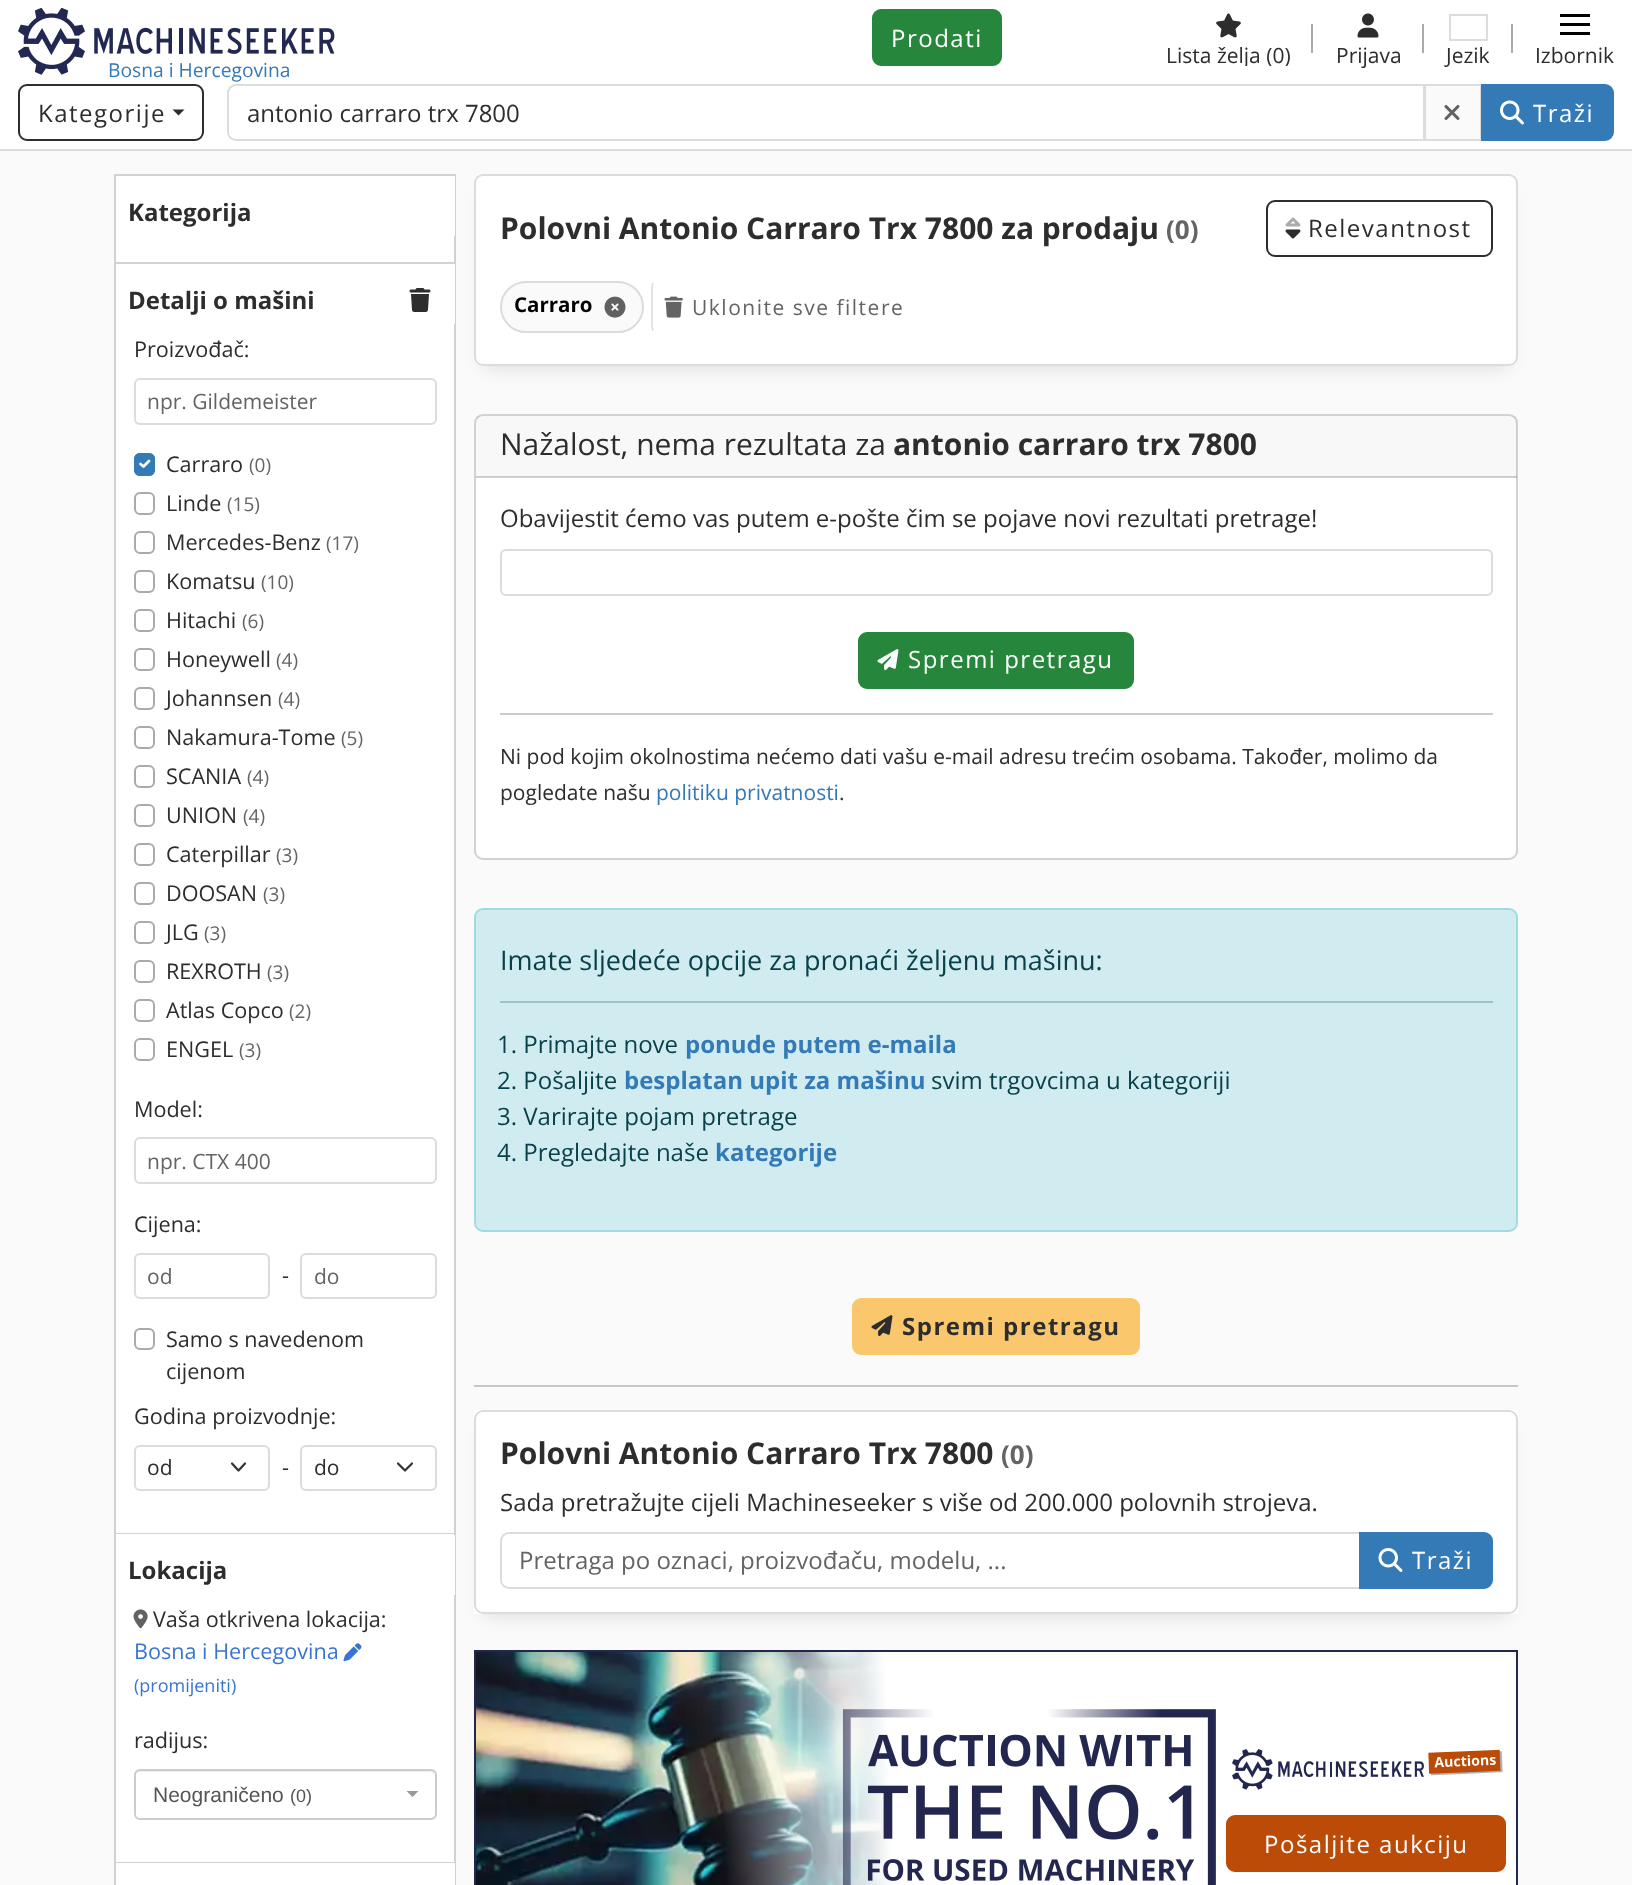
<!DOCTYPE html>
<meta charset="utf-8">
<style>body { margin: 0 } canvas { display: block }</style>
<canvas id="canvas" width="1632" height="1885"></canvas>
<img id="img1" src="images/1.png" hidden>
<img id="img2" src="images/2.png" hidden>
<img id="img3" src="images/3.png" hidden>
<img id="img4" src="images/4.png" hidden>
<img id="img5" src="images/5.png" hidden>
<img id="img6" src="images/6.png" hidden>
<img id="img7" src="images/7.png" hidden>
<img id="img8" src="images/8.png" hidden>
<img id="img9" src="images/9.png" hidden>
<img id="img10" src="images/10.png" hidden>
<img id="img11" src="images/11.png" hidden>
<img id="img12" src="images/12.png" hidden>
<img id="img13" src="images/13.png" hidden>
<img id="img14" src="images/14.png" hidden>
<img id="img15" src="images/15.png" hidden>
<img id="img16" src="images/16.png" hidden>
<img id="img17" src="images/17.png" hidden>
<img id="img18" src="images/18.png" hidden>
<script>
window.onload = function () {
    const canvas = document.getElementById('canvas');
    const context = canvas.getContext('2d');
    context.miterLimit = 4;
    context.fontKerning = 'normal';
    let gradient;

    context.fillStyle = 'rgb(255, 255, 255)';
    context.fillRect(0, 0, 1632, 1885);
    context.fillStyle = 'rgb(220, 220, 220)';
    context.fillRect(0, 149, 1632, 2);
    context.fillStyle = 'rgb(38, 134, 60)';
    context.beginPath();
    context.roundRect(873, 10, 128, 55, 8);
    context.fill();
    context.strokeStyle = 'rgb(38, 134, 60)';
    context.lineWidth = 2;
    context.stroke();
    context.drawImage(document.getElementById('img1'), 1216, 13, 25, 25);
    context.fillStyle = 'rgb(170, 170, 170)';
    context.fillRect(1311, 24, 2, 29);
    context.drawImage(document.getElementById('img2'), 1357, 13, 22, 25);
    context.fillRect(1422, 24, 2, 29);
    context.strokeStyle = 'rgb(220, 220, 220)';
    context.strokeRect(1450, 15, 37, 25);
    context.fillRect(1511, 24, 2, 29);
    context.fillStyle = 'rgb(0, 0, 0)';
    context.fillRect(1560, 14, 30, 3);
    context.fillRect(1560, 23, 30, 3);
    context.fillRect(1560, 32, 30, 3);
    context.drawImage(document.getElementById('img3'), 18, 8, 317, 67);
    context.beginPath();
    context.roundRect(19, 85, 184, 55, 8);
    context.strokeStyle = 'rgb(45, 45, 45)';
    context.stroke();
    context.fillStyle = 'rgb(45, 45, 45)';
    context.beginPath();
    context.moveTo(172.5, 109.5);
    context.lineTo(184.5, 109.5);
    context.lineTo(178.5, 115.5);
    context.closePath();
    context.fill();
    context.beginPath();
    context.roundRect(228, 85, 1196, 55, [8, 0, 0, 8]);
    context.strokeStyle = 'rgb(220, 220, 220)';
    context.stroke();
    context.fillStyle = 'rgb(250, 250, 250)';
    context.beginPath();
    context.rect(1425, 85, 56, 55);
    context.fill();
    context.stroke();
    context.drawImage(document.getElementById('img4'), 1444, 105, 16, 15);
    context.fillStyle = 'rgb(51, 122, 183)';
    context.beginPath();
    context.roundRect(1482, 85, 131, 55, [0, 8, 8, 0]);
    context.fill();
    context.strokeStyle = 'rgb(51, 122, 183)';
    context.stroke();
    context.drawImage(document.getElementById('img5'), 1500, 100, 24, 25);
    context.fillStyle = 'rgb(250, 250, 250)';
    context.fillRect(0, 151, 1632, 1734);
    context.fillStyle = 'rgb(255, 255, 255)';
    context.fillRect(114, 174, 342, 1711);
    context.fillStyle = 'rgb(210, 210, 210)';
    context.beginPath();
    context.moveTo(114, 174);
    context.lineTo(456, 174);
    context.lineTo(454, 176);
    context.lineTo(116, 176);
    context.closePath();
    context.fill();
    context.fillStyle = 'rgba(0, 0, 0, 0.18)';
    context.beginPath();
    context.moveTo(456, 174);
    context.lineTo(456, 262);
    context.lineTo(454, 262);
    context.lineTo(454, 176);
    context.closePath();
    context.fill();
    context.beginPath();
    context.moveTo(114, 262);
    context.lineTo(114, 174);
    context.lineTo(116, 176);
    context.lineTo(116, 262);
    context.closePath();
    context.fill();
    context.fillStyle = 'rgb(255, 255, 255)';
    context.fillRect(454, 176, 1, 60);
    context.fillStyle = 'rgb(210, 210, 210)';
    context.beginPath();
    context.moveTo(114, 262);
    context.lineTo(456, 262);
    context.lineTo(454, 264);
    context.lineTo(116, 264);
    context.closePath();
    context.fill();
    context.fillStyle = 'rgba(0, 0, 0, 0.18)';
    context.beginPath();
    context.moveTo(456, 262);
    context.lineTo(456, 1533);
    context.lineTo(454, 1533);
    context.lineTo(454, 264);
    context.closePath();
    context.fill();
    context.beginPath();
    context.moveTo(114, 1533);
    context.lineTo(114, 262);
    context.lineTo(116, 264);
    context.lineTo(116, 1533);
    context.closePath();
    context.fill();
    context.fillStyle = 'rgb(255, 255, 255)';
    context.fillRect(454, 264, 1, 60);
    context.drawImage(document.getElementById('img6'), 409, 288, 22, 24);
    context.beginPath();
    context.roundRect(135, 379, 301, 45, 5);
    context.strokeStyle = 'rgb(220, 220, 220)';
    context.stroke();
    context.fillStyle = 'rgb(51, 122, 183)';
    context.beginPath();
    context.roundRect(134, 453, 21, 23, 6);
    context.fill();
    context.beginPath();
    context.moveTo(140.5, 464);
    context.lineTo(143.5, 466.5);
    context.lineTo(149, 461);
    context.strokeStyle = 'rgb(255, 255, 255)';
    context.lineWidth = 2.8;
    context.lineCap = 'round';
    context.lineJoin = 'round';
    context.stroke();
    context.beginPath();
    context.roundRect(135, 454, 19, 21, 5);
    context.strokeStyle = 'rgb(51, 122, 183)';
    context.lineWidth = 2;
    context.lineJoin = 'miter';
    context.stroke();
    context.beginPath();
    context.roundRect(135, 493, 19, 21, 5);
    context.strokeStyle = 'rgb(170, 170, 170)';
    context.stroke();
    context.beginPath();
    context.roundRect(135, 532, 19, 21, 5);
    context.stroke();
    context.beginPath();
    context.roundRect(135, 571, 19, 21, 5);
    context.stroke();
    context.beginPath();
    context.roundRect(135, 610, 19, 21, 5);
    context.stroke();
    context.beginPath();
    context.roundRect(135, 649, 19, 21, 5);
    context.stroke();
    context.beginPath();
    context.roundRect(135, 688, 19, 21, 5);
    context.stroke();
    context.beginPath();
    context.roundRect(135, 727, 19, 21, 5);
    context.stroke();
    context.beginPath();
    context.roundRect(135, 766, 19, 21, 5);
    context.stroke();
    context.beginPath();
    context.roundRect(135, 805, 19, 21, 5);
    context.stroke();
    context.beginPath();
    context.roundRect(135, 844, 19, 21, 5);
    context.stroke();
    context.beginPath();
    context.roundRect(135, 883, 19, 21, 5);
    context.stroke();
    context.beginPath();
    context.roundRect(135, 922, 19, 21, 5);
    context.stroke();
    context.beginPath();
    context.roundRect(135, 961, 19, 21, 5);
    context.stroke();
    context.beginPath();
    context.roundRect(135, 1000, 19, 21, 5);
    context.stroke();
    context.beginPath();
    context.roundRect(135, 1039, 19, 21, 5);
    context.stroke();
    context.beginPath();
    context.roundRect(135, 1138, 301, 45, 5);
    context.strokeStyle = 'rgb(220, 220, 220)';
    context.stroke();
    context.beginPath();
    context.roundRect(135, 1254, 134, 44, 5);
    context.stroke();
    context.beginPath();
    context.roundRect(301, 1254, 135, 44, 5);
    context.stroke();
    context.beginPath();
    context.roundRect(135, 1329, 19, 20, 5);
    context.strokeStyle = 'rgb(170, 170, 170)';
    context.stroke();
    context.beginPath();
    context.moveTo(232, 1463.5);
    context.lineTo(238.5, 1470.5);
    context.lineTo(245, 1463.5);
    context.strokeStyle = 'rgb(50, 50, 50)';
    context.lineWidth = 2.2;
    context.lineJoin = 'round';
    context.stroke();
    context.beginPath();
    context.roundRect(135, 1446, 134, 44, 5);
    context.strokeStyle = 'rgb(220, 220, 220)';
    context.lineWidth = 2;
    context.lineJoin = 'miter';
    context.stroke();
    context.beginPath();
    context.moveTo(398, 1463.5);
    context.lineTo(405, 1470.5);
    context.lineTo(412, 1463.5);
    context.strokeStyle = 'rgb(50, 50, 50)';
    context.lineWidth = 2.2;
    context.lineJoin = 'round';
    context.stroke();
    context.beginPath();
    context.roundRect(301, 1446, 135, 44, 5);
    context.strokeStyle = 'rgb(220, 220, 220)';
    context.lineWidth = 2;
    context.lineJoin = 'miter';
    context.stroke();
    context.fillStyle = 'rgb(210, 210, 210)';
    context.beginPath();
    context.moveTo(114, 1533);
    context.lineTo(456, 1533);
    context.lineTo(454, 1534);
    context.lineTo(116, 1534);
    context.closePath();
    context.fill();
    context.fillStyle = 'rgba(0, 0, 0, 0.18)';
    context.beginPath();
    context.moveTo(456, 1533);
    context.lineTo(456, 1862);
    context.lineTo(454, 1862);
    context.lineTo(454, 1534);
    context.closePath();
    context.fill();
    context.beginPath();
    context.moveTo(114, 1862);
    context.lineTo(114, 1533);
    context.lineTo(116, 1534);
    context.lineTo(116, 1862);
    context.closePath();
    context.fill();
    context.fillStyle = 'rgb(255, 255, 255)';
    context.fillRect(454, 1535, 1, 60);
    context.drawImage(document.getElementById('img7'), 133, 1609, 15, 20);
    context.drawImage(document.getElementById('img8'), 343, 1643, 19, 19);
    context.fillStyle = 'rgb(236, 236, 236)';
    context.beginPath();
    context.moveTo(140, 1772);
    context.lineTo(430, 1772);
    context.bezierCurveTo(433, 1772, 435, 1774, 435, 1776);
    context.lineTo(435, 1775);
    context.bezierCurveTo(435, 1772, 433, 1770, 430, 1770);
    context.lineTo(140, 1770);
    context.bezierCurveTo(137, 1770, 135, 1772, 135, 1775);
    context.lineTo(135, 1776);
    context.bezierCurveTo(135, 1774, 137, 1772, 140, 1772);
    context.closePath();
    context.fill();
    context.beginPath();
    context.roundRect(135, 1770, 301, 49, 5);
    context.strokeStyle = 'rgb(204, 204, 204)';
    context.stroke();
    context.fillStyle = 'rgb(153, 153, 153)';
    context.beginPath();
    context.moveTo(406.5, 1791);
    context.lineTo(418.5, 1791);
    context.lineTo(412.5, 1797);
    context.closePath();
    context.fill();
    context.fillStyle = 'rgb(210, 210, 210)';
    context.beginPath();
    context.moveTo(114, 1862);
    context.lineTo(456, 1862);
    context.lineTo(454, 1863);
    context.lineTo(116, 1863);
    context.closePath();
    context.fill();
    context.fillStyle = 'rgba(0, 0, 0, 0.18)';
    context.beginPath();
    context.moveTo(456, 1862);
    context.lineTo(456, 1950);
    context.lineTo(454, 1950);
    context.lineTo(454, 1863);
    context.closePath();
    context.fill();
    context.beginPath();
    context.moveTo(114, 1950);
    context.lineTo(114, 1862);
    context.lineTo(116, 1863);
    context.lineTo(116, 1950);
    context.closePath();
    context.fill();
    context.fillStyle = 'rgb(255, 255, 255)';
    context.fillRect(454, 1863, 1, 22);
    context.fillStyle = 'rgba(0, 0, 0, 0.1)';
    context.filter = 'blur(8.5px)';
    context.beginPath();
    context.rect(483, 195, 1026, 174);
    context.fill();
    context.filter = 'none';
    context.fillStyle = 'rgb(255, 255, 255)';
    context.beginPath();
    context.roundRect(475, 175, 1042, 190, 8);
    context.fill();
    context.strokeStyle = 'rgb(220, 220, 220)';
    context.stroke();
    context.beginPath();
    context.roundRect(1267, 201, 225, 55, 8);
    context.strokeStyle = 'rgb(45, 45, 45)';
    context.stroke();
    context.drawImage(document.getElementById('img9'), 1285, 217, 16, 10);
    context.drawImage(document.getElementById('img10'), 1285, 229, 16, 10);
    context.fillStyle = 'rgb(250, 250, 250)';
    context.beginPath();
    context.roundRect(501, 282, 142, 50, 25);
    context.fill();
    context.strokeStyle = 'rgb(220, 220, 220)';
    context.stroke();
    context.drawImage(document.getElementById('img11'), 604, 296, 22, 22);
    context.beginPath();
    context.moveTo(653.5, 330.5);
    context.bezierCurveTo(652.5, 329.5, 652, 328.5, 652, 327);
    context.lineTo(652, 286.5);
    context.bezierCurveTo(652, 285, 652.5, 284, 653.5, 283);
    context.lineWidth = 1.5;
    context.lineCap = 'butt';
    context.stroke();
    context.drawImage(document.getElementById('img12'), 664, 296, 19, 22);
    context.fillStyle = 'rgb(255, 255, 255)';
    context.beginPath();
    context.roundRect(475, 415, 1042, 444, 8);
    context.fill();
    context.strokeStyle = 'rgb(210, 210, 210)';
    context.lineWidth = 2;
    context.stroke();
    context.fillStyle = 'rgba(45, 45, 45, 0.03)';
    context.fillRect(476, 416, 1041, 61);
    context.fillStyle = 'rgba(0, 0, 0, 0.18)';
    context.fillRect(476, 476, 1041, 2);
    context.beginPath();
    context.roundRect(501, 550, 991, 45, 5);
    context.strokeStyle = 'rgb(220, 220, 220)';
    context.stroke();
    context.fillStyle = 'rgb(38, 134, 60)';
    context.beginPath();
    context.roundRect(859, 633, 274, 55, 8);
    context.fill();
    context.strokeStyle = 'rgb(38, 134, 60)';
    context.stroke();
    context.drawImage(document.getElementById('img13'), 877, 649, 22, 22);
    context.fillStyle = 'rgb(203, 203, 203)';
    context.fillRect(500, 713, 993, 2);
    context.fillStyle = 'rgb(209, 236, 241)';
    context.beginPath();
    context.roundRect(475, 909, 1042, 322, 8);
    context.fill();
    context.strokeStyle = 'rgb(162, 218, 227)';
    context.stroke();
    context.fillStyle = 'rgb(159, 193, 199)';
    context.fillRect(500, 1001, 993, 2);
    context.fillStyle = 'rgb(251, 199, 109)';
    context.beginPath();
    context.roundRect(853, 1299, 286, 55, 8);
    context.fill();
    context.strokeStyle = 'rgb(251, 199, 109)';
    context.stroke();
    context.drawImage(document.getElementById('img14'), 871, 1315, 22, 22);
    context.fillStyle = 'rgb(199, 199, 199)';
    context.fillRect(474, 1385, 1044, 2);
    context.fillStyle = 'rgba(0, 0, 0, 0.1)';
    context.filter = 'blur(8.5px)';
    context.beginPath();
    context.rect(483, 1431, 1026, 186);
    context.fill();
    context.filter = 'none';
    context.fillStyle = 'rgb(255, 255, 255)';
    context.fillRect(474, 1410, 1044, 204);
    context.beginPath();
    context.roundRect(475, 1411, 1042, 202, 8);
    context.strokeStyle = 'rgb(220, 220, 220)';
    context.stroke();
    context.beginPath();
    context.roundRect(501, 1533, 859, 55, [8, 0, 0, 8]);
    context.stroke();
    context.fillStyle = 'rgb(51, 122, 183)';
    context.beginPath();
    context.roundRect(1360, 1533, 132, 55, [0, 8, 8, 0]);
    context.fill();
    context.strokeStyle = 'rgb(51, 122, 183)';
    context.stroke();
    context.drawImage(document.getElementById('img15'), 1378, 1548, 25, 24);
    context.drawImage(document.getElementById('img16'), 476, 1652, 417, 233);
    gradient = context.createLinearGradient(1521, 1790, 471, 1827);
    gradient.addColorStop(0.6, 'rgb(255, 255, 255)');
    gradient.addColorStop(0.76, 'rgba(255, 255, 255, 0)');
    context.fillStyle = gradient;
    context.fillRect(721, 1652, 795, 233);
    context.strokeStyle = 'rgb(35, 38, 79)';
    context.strokeRect(475, 1651, 1042, 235);
    context.drawImage(document.getElementById('img17'), 842, 1709, 374, 176);
    context.drawImage(document.getElementById('img18'), 1232, 1749, 271, 41);
    context.fillStyle = 'rgb(188, 75, 8)';
    context.beginPath();
    context.roundRect(1227, 1816, 278, 55, 8);
    context.fill();
    context.strokeStyle = 'rgb(188, 75, 8)';
    context.stroke();
    context.letterSpacing = '1.5px';
    context.font = '24px Open Sans';
    context.fillStyle = 'rgb(255, 255, 255)';
    context.fillText('Prodati', 891, 47);
    context.save();
    context.beginPath();
    context.rect(1166, 45, 124, 21);
    context.clip();
    context.letterSpacing = '0px';
    context.font = '21px Open Sans';
    context.fillStyle = 'rgb(45, 45, 45)';
    context.fillText('Lista želja (0)', 1166, 63);
    context.restore();
    context.letterSpacing = '0px';
    context.font = '21px Open Sans';
    context.fillStyle = 'rgb(45, 45, 45)';
    context.fillText('Prijava', 1336, 63);
    context.fillText('Jezik', 1446, 63);
    context.fillText('Izbornik', 1535, 63);
    context.font = '19.25px Open Sans';
    context.fillStyle = 'rgb(51, 122, 183)';
    context.fillText('Bosna i Hercegovina', 108, 77);
    context.letterSpacing = '1.5px';
    context.font = '24px Open Sans';
    context.fillStyle = 'rgb(45, 45, 45)';
    context.fillText('Kategorije', 38, 122);
    context.letterSpacing = '0px';
    context.fillText('antonio carraro trx 7800', 247, 122);
    context.letterSpacing = '1.5px';
    context.fillStyle = 'rgb(255, 255, 255)';
    context.fillText('Traži', 1533, 122);
    context.letterSpacing = '0px';
    context.font = 'bold 24px Open Sans';
    context.fillStyle = 'rgb(45, 45, 45)';
    context.fillText('Kategorija', 128, 221);
    context.fillText('Detalji o mašini', 128, 309);
    context.font = '21.6px Open Sans';
    context.fillText('Proizvođač:', 134, 357);
    context.font = '21px Open Sans';
    context.fillStyle = 'rgb(100, 100, 100)';
    context.fillText('npr. Gildemeister', 147, 409);
    context.font = '21.6px Open Sans';
    context.fillStyle = 'rgb(45, 45, 45)';
    context.fillText('Carraro', 166, 472);
    context.font = '19px Open Sans';
    context.fillStyle = 'rgb(100, 100, 100)';
    context.fillText('(0)', 249, 472);
    context.font = '21.6px Open Sans';
    context.fillStyle = 'rgb(45, 45, 45)';
    context.fillText('Linde', 166, 511);
    context.font = '19px Open Sans';
    context.fillStyle = 'rgb(100, 100, 100)';
    context.fillText('(15)', 227, 511);
    context.font = '21.6px Open Sans';
    context.fillStyle = 'rgb(45, 45, 45)';
    context.fillText('Mercedes-Benz', 166, 550);
    context.font = '19px Open Sans';
    context.fillStyle = 'rgb(100, 100, 100)';
    context.fillText('(17)', 326, 550);
    context.font = '21.6px Open Sans';
    context.fillStyle = 'rgb(45, 45, 45)';
    context.fillText('Komatsu', 166, 589);
    context.font = '19px Open Sans';
    context.fillStyle = 'rgb(100, 100, 100)';
    context.fillText('(10)', 261, 589);
    context.font = '21.6px Open Sans';
    context.fillStyle = 'rgb(45, 45, 45)';
    context.fillText('Hitachi', 166, 628);
    context.font = '19px Open Sans';
    context.fillStyle = 'rgb(100, 100, 100)';
    context.fillText('(6)', 242, 628);
    context.font = '21.6px Open Sans';
    context.fillStyle = 'rgb(45, 45, 45)';
    context.fillText('Honeywell', 166, 667);
    context.font = '19px Open Sans';
    context.fillStyle = 'rgb(100, 100, 100)';
    context.fillText('(4)', 276, 667);
    context.font = '21.6px Open Sans';
    context.fillStyle = 'rgb(45, 45, 45)';
    context.fillText('Johannsen', 166, 706);
    context.font = '19px Open Sans';
    context.fillStyle = 'rgb(100, 100, 100)';
    context.fillText('(4)', 278, 706);
    context.font = '21.6px Open Sans';
    context.fillStyle = 'rgb(45, 45, 45)';
    context.fillText('Nakamura-Tome', 166, 745);
    context.font = '19px Open Sans';
    context.fillStyle = 'rgb(100, 100, 100)';
    context.fillText('(5)', 341, 745);
    context.font = '21.6px Open Sans';
    context.fillStyle = 'rgb(45, 45, 45)';
    context.fillText('SCANIA', 166, 784);
    context.font = '19px Open Sans';
    context.fillStyle = 'rgb(100, 100, 100)';
    context.fillText('(4)', 247, 784);
    context.font = '21.6px Open Sans';
    context.fillStyle = 'rgb(45, 45, 45)';
    context.fillText('UNION', 166, 823);
    context.font = '19px Open Sans';
    context.fillStyle = 'rgb(100, 100, 100)';
    context.fillText('(4)', 243, 823);
    context.font = '21.6px Open Sans';
    context.fillStyle = 'rgb(45, 45, 45)';
    context.fillText('Caterpillar', 166, 862);
    context.font = '19px Open Sans';
    context.fillStyle = 'rgb(100, 100, 100)';
    context.fillText('(3)', 276, 862);
    context.font = '21.6px Open Sans';
    context.fillStyle = 'rgb(45, 45, 45)';
    context.fillText('DOOSAN', 166, 901);
    context.font = '19px Open Sans';
    context.fillStyle = 'rgb(100, 100, 100)';
    context.fillText('(3)', 263, 901);
    context.font = '21.6px Open Sans';
    context.fillStyle = 'rgb(45, 45, 45)';
    context.fillText('JLG', 166, 940);
    context.font = '19px Open Sans';
    context.fillStyle = 'rgb(100, 100, 100)';
    context.fillText('(3)', 204, 940);
    context.font = '21.6px Open Sans';
    context.fillStyle = 'rgb(45, 45, 45)';
    context.fillText('REXROTH', 166, 979);
    context.font = '19px Open Sans';
    context.fillStyle = 'rgb(100, 100, 100)';
    context.fillText('(3)', 267, 979);
    context.font = '21.6px Open Sans';
    context.fillStyle = 'rgb(45, 45, 45)';
    context.fillText('Atlas Copco', 166, 1018);
    context.font = '19px Open Sans';
    context.fillStyle = 'rgb(100, 100, 100)';
    context.fillText('(2)', 289, 1018);
    context.font = '21.6px Open Sans';
    context.fillStyle = 'rgb(45, 45, 45)';
    context.fillText('ENGEL', 166, 1057);
    context.font = '19px Open Sans';
    context.fillStyle = 'rgb(100, 100, 100)';
    context.fillText('(3)', 239, 1057);
    context.font = '21.6px Open Sans';
    context.fillStyle = 'rgb(45, 45, 45)';
    context.fillText('Model:', 134, 1117);
    context.font = '21px Open Sans';
    context.fillStyle = 'rgb(100, 100, 100)';
    context.fillText('npr. CTX 400', 147, 1169);
    context.font = '21.6px Open Sans';
    context.fillStyle = 'rgb(45, 45, 45)';
    context.fillText('Cijena:', 134, 1232);
    context.font = '21px Open Sans';
    context.fillStyle = 'rgb(100, 100, 100)';
    context.fillText('od', 147, 1284);
    context.font = '21.6px Open Sans';
    context.fillStyle = 'rgb(45, 45, 45)';
    context.fillText('-', 282, 1283);
    context.font = '21px Open Sans';
    context.fillStyle = 'rgb(100, 100, 100)';
    context.fillText('do', 314, 1284);
    context.font = '21.6px Open Sans';
    context.fillStyle = 'rgb(45, 45, 45)';
    context.fillText('Samo s navedenom', 166, 1347);
    context.fillText('cijenom', 166, 1379);
    context.fillText('Godina proizvodnje:', 134, 1424);
    context.font = '21px Open Sans';
    context.fillText('od', 147, 1475);
    context.font = '21.6px Open Sans';
    context.fillText('-', 282, 1475);
    context.font = '21px Open Sans';
    context.fillText('do', 314, 1475);
    context.font = 'bold 24px Open Sans';
    context.fillText('Lokacija', 128, 1579);
    context.font = '21.6px Open Sans';
    context.fillText('Vaša otkrivena lokacija:', 153, 1627);
    context.fillStyle = 'rgb(56, 117, 209)';
    context.fillText('Bosna i Hercegovina', 134, 1659);
    context.font = '18px Open Sans';
    context.fillText('(promijeniti)', 134, 1692);
    context.font = '21.6px Open Sans';
    context.fillStyle = 'rgb(45, 45, 45)';
    context.fillText('radijus:', 134, 1748);
    context.font = '21px Liberation Sans';
    context.fillStyle = 'rgb(85, 85, 85)';
    context.fillText('Neograničeno', 153, 1802);
    context.font = '18px Liberation Sans';
    context.fillText('(0)', 290, 1802);
    context.font = 'bold 30px Open Sans';
    context.fillStyle = 'rgb(45, 45, 45)';
    context.fillText('Polovni Antonio Carraro Trx 7800 za prodaju', 500, 239);
    context.font = 'bold 26px Open Sans';
    context.fillStyle = 'rgb(100, 100, 100)';
    context.fillText('(0)', 1166, 239);
    context.letterSpacing = '1.5px';
    context.font = '24px Open Sans';
    context.fillStyle = 'rgb(45, 45, 45)';
    context.fillText('Relevantnost', 1308, 237);
    context.letterSpacing = '0px';
    context.font = 'bold 20.5px Open Sans';
    context.fillStyle = 'rgb(0, 0, 0)';
    context.fillText('Carraro', 514, 312);
    context.letterSpacing = '1.5px';
    context.font = '21px Open Sans';
    context.fillStyle = 'rgb(100, 100, 100)';
    context.fillText('Uklonite sve filtere', 692, 315);
    context.letterSpacing = '0px';
    context.font = '30px Open Sans';
    context.fillStyle = 'rgb(45, 45, 45)';
    context.fillText('Nažalost, nema rezultata za', 500, 455);
    context.font = 'bold 30px Open Sans';
    context.fillText('antonio carraro trx 7800', 893, 455);
    context.font = '24px Open Sans';
    context.fillText('Obavijestit ćemo vas putem e-pošte čim se pojave novi rezultati pretrage!', 500, 527);
    context.letterSpacing = '1.5px';
    context.fillStyle = 'rgb(255, 255, 255)';
    context.fillText('Spremi pretragu', 908, 668);
    context.letterSpacing = '0px';
    context.font = '21px Open Sans';
    context.fillStyle = 'rgb(45, 45, 45)';
    context.fillText('Ni pod kojim okolnostima nećemo dati vašu e-mail adresu trećim osobama. Također, molimo da', 500, 764);
    context.fillText('pogledate našu', 500, 800);
    context.fillStyle = 'rgb(51, 122, 183)';
    context.fillText('politiku privatnosti', 656, 800);
    context.fillStyle = 'rgb(45, 45, 45)';
    context.fillText('.', 839, 800);
    context.font = '27px Open Sans';
    context.fillStyle = 'rgb(9, 65, 74)';
    context.fillText('Imate sljedeće opcije za pronaći željenu mašinu:', 500, 970);
    context.font = '24px Open Sans';
    context.fillText('1. Primajte nove', 497, 1053);
    context.font = 'bold 24px Open Sans';
    context.fillStyle = 'rgb(51, 122, 183)';
    context.fillText('ponude putem e-maila', 685, 1053);
    context.font = '24px Open Sans';
    context.fillStyle = 'rgb(9, 65, 74)';
    context.fillText('2. Pošaljite', 497, 1089);
    context.font = 'bold 24px Open Sans';
    context.fillStyle = 'rgb(51, 122, 183)';
    context.fillText('besplatan upit za mašinu', 624, 1089);
    context.font = '24px Open Sans';
    context.fillStyle = 'rgb(9, 65, 74)';
    context.fillText('svim trgovcima u kategoriji', 931, 1089);
    context.fillText('3. Varirajte pojam pretrage', 497, 1125);
    context.fillText('4. Pregledajte naše', 497, 1161);
    context.font = 'bold 24px Open Sans';
    context.fillStyle = 'rgb(51, 122, 183)';
    context.fillText('kategorije', 715, 1161);
    context.letterSpacing = '1.5px';
    context.fillStyle = 'rgb(45, 45, 45)';
    context.fillText('Spremi pretragu', 902, 1335);
    context.letterSpacing = '0px';
    context.font = 'bold 30px Open Sans';
    context.fillText('Polovni Antonio Carraro Trx 7800', 500, 1464);
    context.font = 'bold 26px Open Sans';
    context.fillStyle = 'rgb(100, 100, 100)';
    context.fillText('(0)', 1001, 1464);
    context.font = '24px Open Sans';
    context.fillStyle = 'rgb(45, 45, 45)';
    context.fillText('Sada pretražujte cijeli Machineseeker s više od 200.000 polovnih strojeva.', 500, 1511);
    context.fillStyle = 'rgb(100, 100, 100)';
    context.fillText('Pretraga po oznaci, proizvođaču, modelu, ...', 519, 1569);
    context.letterSpacing = '1.5px';
    context.fillStyle = 'rgb(255, 255, 255)';
    context.fillText('Traži', 1412, 1569);
    context.fillText('Pošaljite aukciju', 1264, 1853);
};
</script>
